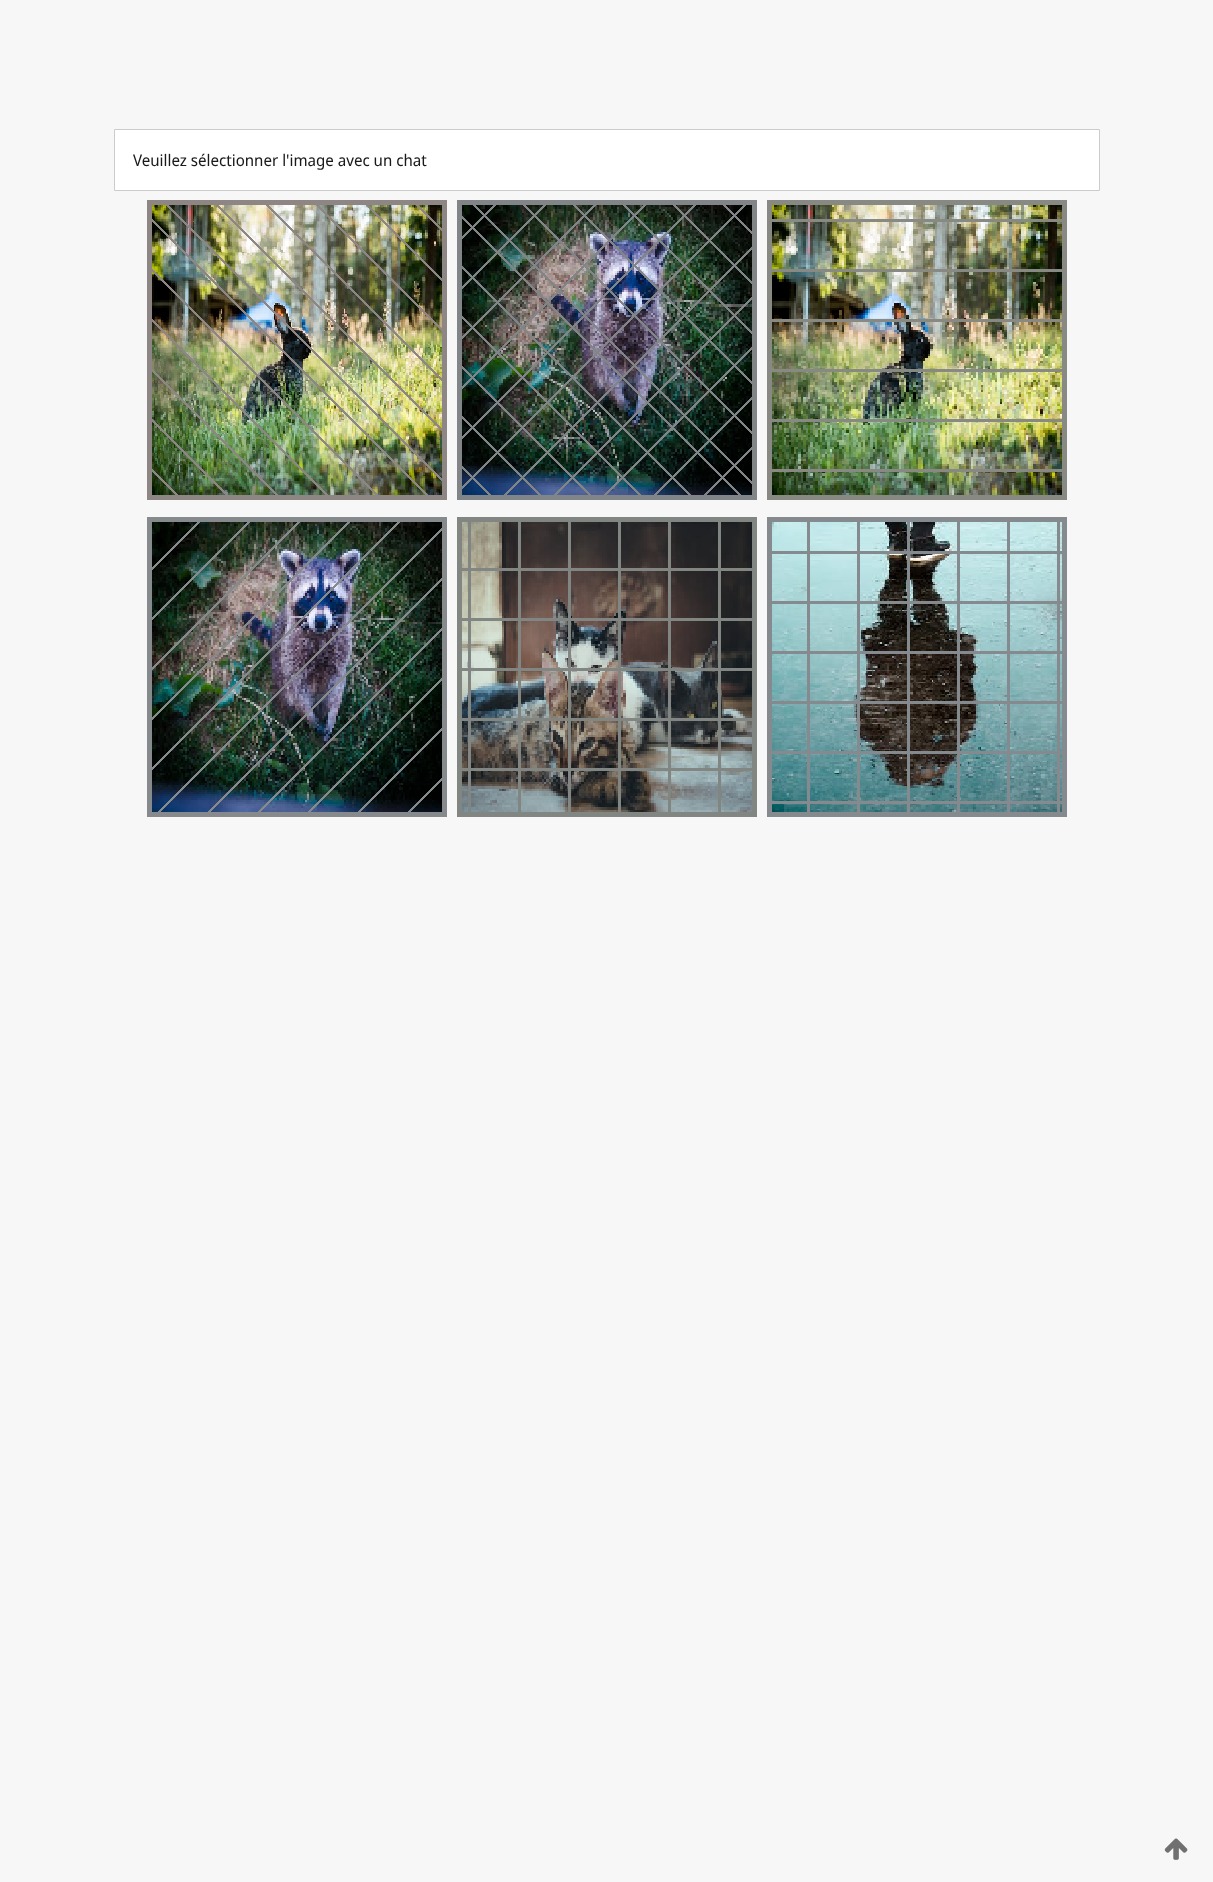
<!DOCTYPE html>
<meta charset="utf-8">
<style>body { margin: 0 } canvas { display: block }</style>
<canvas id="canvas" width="1213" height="1882"></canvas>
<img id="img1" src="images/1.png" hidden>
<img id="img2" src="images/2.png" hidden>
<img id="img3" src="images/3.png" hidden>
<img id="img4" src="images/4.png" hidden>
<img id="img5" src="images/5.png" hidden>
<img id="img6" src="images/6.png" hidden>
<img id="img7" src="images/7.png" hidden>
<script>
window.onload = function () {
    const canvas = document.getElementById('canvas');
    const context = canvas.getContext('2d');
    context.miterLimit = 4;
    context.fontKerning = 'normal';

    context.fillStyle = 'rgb(247, 247, 247)';
    context.fillRect(0, 0, 1213, 1882);
    context.fillStyle = 'rgb(255, 255, 255)';
    context.beginPath();
    context.rect(114.5, 129.5, 985, 61);
    context.fill();
    context.strokeStyle = 'rgb(204, 204, 204)';
    context.stroke();
    context.drawImage(document.getElementById('img1'), 147, 200, 300, 300);
    context.drawImage(document.getElementById('img2'), 457, 200, 300, 300);
    context.drawImage(document.getElementById('img3'), 767, 200, 300, 300);
    context.drawImage(document.getElementById('img4'), 147, 517, 300, 300);
    context.drawImage(document.getElementById('img5'), 457, 517, 300, 300);
    context.drawImage(document.getElementById('img6'), 767, 517, 300, 300);
    context.drawImage(document.getElementById('img7'), 1164, 1838, 24, 22);
    context.font = '16px Noto Sans Display';
    context.fillStyle = 'rgb(26, 26, 26)';
    context.fillText('Veuillez sélectionner l\'image avec un chat', 133, 166);
};
</script>
